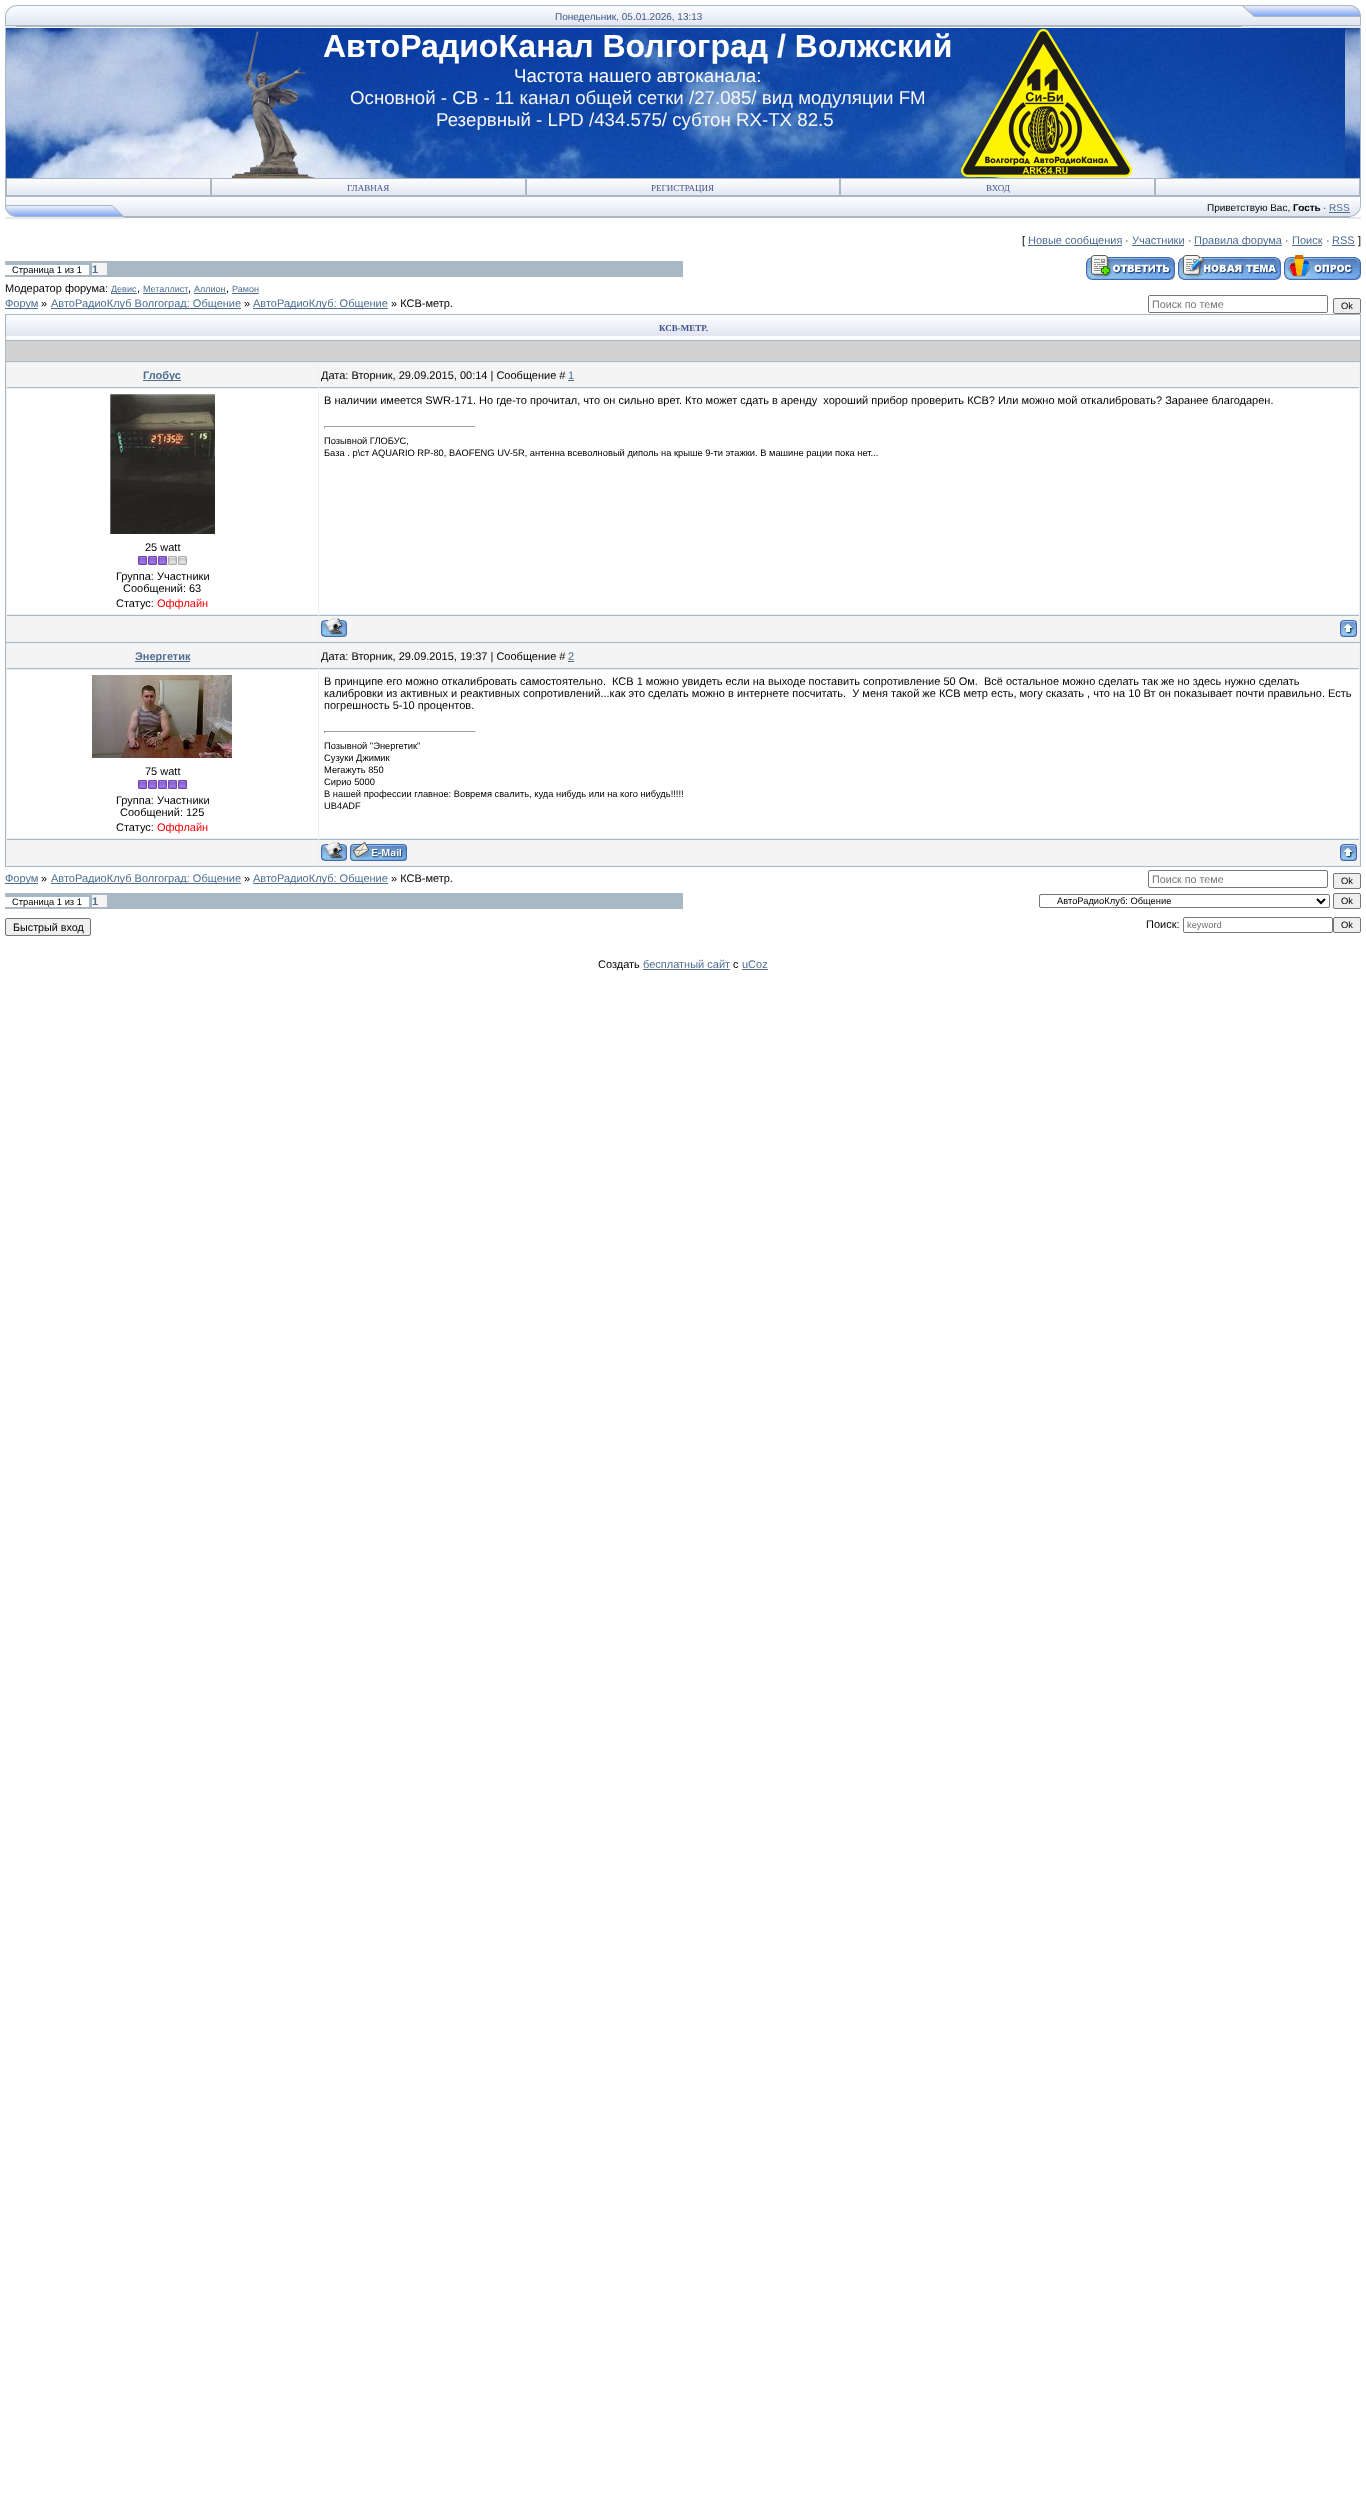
<!DOCTYPE html>
<meta charset="utf-8">
<style>body { margin: 0 } canvas { display: block }</style>
<canvas id="canvas" width="1366" height="2507"></canvas>
<img id="img1" src="images/1.png" hidden>
<img id="img2" src="images/2.png" hidden>
<img id="img3" src="images/3.png" hidden>
<img id="img4" src="images/4.png" hidden>
<img id="img5" src="images/5.png" hidden>
<img id="img6" src="images/6.png" hidden>
<img id="img7" src="images/7.png" hidden>
<img id="img8" src="images/8.png" hidden>
<img id="img9" src="images/9.png" hidden>
<img id="img10" src="images/10.png" hidden>
<img id="img11" src="images/11.png" hidden>
<img id="img12" src="images/12.png" hidden>
<img id="img13" src="images/13.png" hidden>
<img id="img14" src="images/14.png" hidden>
<img id="img15" src="images/15.png" hidden>
<img id="img16" src="images/16.png" hidden>
<img id="img17" src="images/17.png" hidden>
<img id="img18" src="images/18.png" hidden>
<img id="img19" src="images/19.png" hidden>
<img id="img20" src="images/20.png" hidden>
<img id="img21" src="images/21.png" hidden>
<img id="img22" src="images/22.png" hidden>
<script>
window.onload = function () {
    const canvas = document.getElementById('canvas');
    const context = canvas.getContext('2d');
    context.miterLimit = 4;
    context.fontKerning = 'normal';

    context.fillStyle = 'rgb(255, 255, 255)';
    context.fillRect(0, 0, 1366, 2507);
    context.fillStyle = 'rgb(228, 232, 243)';
    context.fillRect(5, 26, 11, 2);
    context.drawImage(document.getElementById('img1'), 5, 5, 11, 21);
    context.drawImage(document.getElementById('img2'), 16, 5, 1226, 23);
    context.fillRect(1242, 26, 119, 2);
    context.drawImage(document.getElementById('img3'), 1242, 5, 119, 21);
    context.fillStyle = 'rgb(169, 184, 194)';
    context.fillRect(1360, 28, 1, 168);
    context.fillRect(5, 28, 1, 168);
    context.drawImage(document.getElementById('img4'), 6, 28, 1354, 150);
    context.drawImage(document.getElementById('img5'), 232, 30, 83, 148);
    context.drawImage(document.getElementById('img6'), 961, 29, 171, 148);
    context.drawImage(document.getElementById('img7'), 7, 179, 203, 16);
    context.strokeStyle = 'rgb(169, 184, 194)';
    context.strokeRect(6.5, 178.5, 204, 17);
    context.drawImage(document.getElementById('img8'), 212, 179, 313, 16);
    context.strokeRect(211.5, 178.5, 314, 17);
    context.drawImage(document.getElementById('img9'), 527, 179, 312, 16);
    context.strokeRect(526.5, 178.5, 313, 17);
    context.drawImage(document.getElementById('img8'), 841, 179, 313, 16);
    context.strokeRect(840.5, 178.5, 314, 17);
    context.drawImage(document.getElementById('img7'), 1156, 179, 203, 16);
    context.strokeRect(1155.5, 178.5, 204, 17);
    context.fillStyle = 'rgb(228, 232, 243)';
    context.fillRect(5, 217, 119, 2);
    context.drawImage(document.getElementById('img10'), 5, 196, 119, 21);
    context.drawImage(document.getElementById('img2'), 124, 196, 1226, 23);
    context.fillStyle = 'rgb(77, 109, 145)';
    context.fillRect(1329, 212, 21, 1);
    context.fillStyle = 'rgb(228, 232, 243)';
    context.fillRect(1350, 217, 11, 2);
    context.drawImage(document.getElementById('img11'), 1350, 196, 11, 21);
    context.fillStyle = 'rgb(77, 109, 145)';
    context.fillRect(1028, 245, 94, 1);
    context.fillRect(1132, 245, 52, 1);
    context.fillRect(1194, 245, 88, 1);
    context.fillRect(1292, 245, 30, 1);
    context.fillRect(1332, 245, 23, 1);
    context.fillStyle = 'rgb(169, 184, 194)';
    context.fillRect(5, 261, 678, 16);
    context.fillStyle = 'rgb(255, 255, 255)';
    context.fillRect(5, 265, 84, 10);
    context.fillStyle = 'rgb(244, 244, 244)';
    context.fillRect(92, 263, 15, 12);
    context.drawImage(document.getElementById('img12'), 1086, 255, 89, 25);
    context.drawImage(document.getElementById('img13'), 1178, 255, 103, 25);
    context.drawImage(document.getElementById('img14'), 1284, 255, 77, 25);
    context.fillStyle = 'rgb(77, 109, 145)';
    context.fillRect(111, 293, 26, 1);
    context.fillRect(143, 293, 45, 1);
    context.fillRect(194, 293, 32, 1);
    context.fillRect(232, 293, 27, 1);
    context.fillRect(5, 308, 33, 1);
    context.fillRect(51, 308, 190, 1);
    context.fillRect(253, 308, 135, 1);
    context.beginPath();
    context.roundRect(1148.5, 295.5, 179, 17, 1.5);
    context.strokeStyle = 'rgb(118, 118, 118)';
    context.stroke();
    context.fillStyle = 'rgb(239, 239, 239)';
    context.beginPath();
    context.roundRect(1333.5, 298.5, 27, 15, 1.5);
    context.fill();
    context.stroke();
    context.fillStyle = 'rgb(169, 184, 194)';
    context.fillRect(5, 314, 1356, 553);
    context.drawImage(document.getElementById('img15'), 6, 315, 1354, 25);
    context.fillStyle = 'rgb(210, 210, 210)';
    context.fillRect(6, 341, 1354, 20);
    context.fillStyle = 'rgb(239, 239, 239)';
    context.fillRect(6, 362, 1354, 280);
    context.fillStyle = 'rgb(244, 244, 244)';
    context.fillRect(7, 363, 311, 24);
    context.fillStyle = 'rgb(169, 184, 194)';
    context.fillRect(7, 387, 311, 1);
    context.fillStyle = 'rgb(77, 109, 145)';
    context.fillRect(143, 380, 38, 1);
    context.fillStyle = 'rgb(244, 244, 244)';
    context.fillRect(319, 363, 1040, 24);
    context.fillStyle = 'rgb(169, 184, 194)';
    context.fillRect(319, 387, 1040, 1);
    context.fillStyle = 'rgb(77, 109, 145)';
    context.fillRect(568, 380, 6, 1);
    context.fillStyle = 'rgb(255, 255, 255)';
    context.fillRect(319, 389, 1040, 225);
    context.fillStyle = 'rgb(159, 159, 159)';
    context.fillRect(324, 426, 152, 1);
    context.fillStyle = 'rgb(238, 238, 238)';
    context.fillRect(475, 426, 1, 2);
    context.fillStyle = 'rgb(159, 159, 159)';
    context.fillRect(324, 426, 1, 2);
    context.fillStyle = 'rgb(255, 255, 255)';
    context.fillRect(7, 389, 311, 225);
    context.drawImage(document.getElementById('img16'), 110, 394, 105, 140);
    context.drawImage(document.getElementById('img17'), 138, 556, 49, 9);
    context.fillStyle = 'rgb(244, 244, 244)';
    context.fillRect(7, 616, 311, 25);
    context.fillStyle = 'rgb(169, 184, 194)';
    context.fillRect(7, 615, 311, 1);
    context.fillStyle = 'rgb(244, 244, 244)';
    context.fillRect(319, 616, 1040, 25);
    context.fillStyle = 'rgb(169, 184, 194)';
    context.fillRect(319, 615, 1040, 1);
    context.drawImage(document.getElementById('img18'), 321, 618, 26, 19);
    context.drawImage(document.getElementById('img19'), 1340, 620, 17, 17);
    context.fillStyle = 'rgb(239, 239, 239)';
    context.fillRect(6, 643, 1354, 223);
    context.fillStyle = 'rgb(244, 244, 244)';
    context.fillRect(7, 644, 311, 24);
    context.fillStyle = 'rgb(169, 184, 194)';
    context.fillRect(7, 668, 311, 1);
    context.fillStyle = 'rgb(77, 109, 145)';
    context.fillRect(135, 661, 55, 1);
    context.fillStyle = 'rgb(244, 244, 244)';
    context.fillRect(319, 644, 1040, 24);
    context.fillStyle = 'rgb(169, 184, 194)';
    context.fillRect(319, 668, 1040, 1);
    context.fillStyle = 'rgb(77, 109, 145)';
    context.fillRect(568, 661, 6, 1);
    context.fillStyle = 'rgb(255, 255, 255)';
    context.fillRect(7, 670, 311, 168);
    context.drawImage(document.getElementById('img20'), 92, 675, 140, 83);
    context.drawImage(document.getElementById('img21'), 138, 780, 49, 9);
    context.fillRect(319, 670, 1040, 168);
    context.fillStyle = 'rgb(159, 159, 159)';
    context.fillRect(324, 731, 152, 1);
    context.fillStyle = 'rgb(238, 238, 238)';
    context.fillRect(475, 731, 1, 2);
    context.fillStyle = 'rgb(159, 159, 159)';
    context.fillRect(324, 731, 1, 2);
    context.fillStyle = 'rgb(244, 244, 244)';
    context.fillRect(7, 840, 311, 25);
    context.fillStyle = 'rgb(169, 184, 194)';
    context.fillRect(7, 839, 311, 1);
    context.fillStyle = 'rgb(244, 244, 244)';
    context.fillRect(319, 840, 1040, 25);
    context.fillStyle = 'rgb(169, 184, 194)';
    context.fillRect(319, 839, 1040, 1);
    context.drawImage(document.getElementById('img18'), 321, 842, 26, 19);
    context.drawImage(document.getElementById('img22'), 350, 842, 57, 19);
    context.drawImage(document.getElementById('img19'), 1340, 844, 17, 17);
    context.fillStyle = 'rgb(77, 109, 145)';
    context.fillRect(5, 883, 33, 1);
    context.fillRect(51, 883, 190, 1);
    context.fillRect(253, 883, 135, 1);
    context.beginPath();
    context.roundRect(1148.5, 870.5, 179, 17, 1.5);
    context.stroke();
    context.fillStyle = 'rgb(239, 239, 239)';
    context.beginPath();
    context.roundRect(1333.5, 873.5, 27, 15, 1.5);
    context.fill();
    context.stroke();
    context.fillStyle = 'rgb(169, 184, 194)';
    context.fillRect(5, 893, 678, 16);
    context.fillStyle = 'rgb(255, 255, 255)';
    context.fillRect(5, 897, 84, 10);
    context.fillStyle = 'rgb(244, 244, 244)';
    context.fillRect(92, 895, 15, 12);
    context.beginPath();
    context.roundRect(1039.5, 894.5, 290, 13, 1.5);
    context.stroke();
    context.beginPath();
    context.moveTo(1317, 899);
    context.lineTo(1321, 903);
    context.lineTo(1325, 899);
    context.strokeStyle = 'rgb(0, 0, 0)';
    context.lineWidth = 2;
    context.stroke();
    context.fillStyle = 'rgb(239, 239, 239)';
    context.beginPath();
    context.roundRect(1333.5, 893.5, 27, 15, 1.5);
    context.fill();
    context.strokeStyle = 'rgb(118, 118, 118)';
    context.lineWidth = 1;
    context.stroke();
    context.beginPath();
    context.roundRect(5.5, 918.5, 85, 17, 1.5);
    context.fill();
    context.stroke();
    context.beginPath();
    context.roundRect(1183.5, 917.5, 149, 15, 1.5);
    context.stroke();
    context.beginPath();
    context.roundRect(1333.5, 917.5, 27, 15, 1.5);
    context.fill();
    context.stroke();
    context.fillStyle = 'rgb(77, 109, 145)';
    context.fillRect(643, 969, 87, 1);
    context.fillRect(742, 969, 26, 1);
    context.font = '10px Liberation Sans';
    context.fillStyle = 'rgb(68, 85, 136)';
    context.fillText('Понедельник, 05.01.2026, 13:13', 555, 20);
    context.font = 'bold 32px Liberation Sans';
    context.fillStyle = 'rgb(255, 255, 255)';
    context.fillText('АвтоРадиоКанал Волгоград / Волжский', 323, 57);
    context.font = '18.7px Liberation Sans';
    context.fillText('Частота нашего автоканала:', 514, 82);
    context.fillStyle = 'rgb(245, 245, 245)';
    context.fillText('Основной - СВ - 11 канал общей сетки /27.085/ вид модуляции FM', 350, 104);
    context.fillText('Резервный - LPD /434.575/ субтон RX-TX 82.5', 436, 126);
    context.font = '9px Liberation Serif';
    context.fillStyle = 'rgb(68, 85, 136)';
    context.fillText('ГЛАВНАЯ', 347, 191);
    context.fillText('РЕГИСТРАЦИЯ', 651, 191);
    context.fillText('ВХОД', 986, 191);
    context.font = '10px Liberation Sans';
    context.fillStyle = 'rgb(0, 0, 0)';
    context.fillText('Приветствую Вас,', 1207, 211);
    context.font = 'bold 10px Liberation Sans';
    context.fillText('Гость', 1293, 211);
    context.font = '10px Liberation Sans';
    context.fillText('·', 1323, 211);
    context.fillStyle = 'rgb(77, 109, 145)';
    context.fillText('RSS', 1329, 211);
    context.font = '11px Liberation Sans';
    context.fillStyle = 'rgb(0, 0, 0)';
    context.fillText('[', 1022, 244);
    context.fillStyle = 'rgb(77, 109, 145)';
    context.fillText('Новые сообщения', 1028, 244);
    context.fillStyle = 'rgb(0, 0, 0)';
    context.fillText('·', 1125, 244);
    context.fillStyle = 'rgb(77, 109, 145)';
    context.fillText('Участники', 1132, 244);
    context.fillStyle = 'rgb(0, 0, 0)';
    context.fillText('·', 1188, 244);
    context.fillStyle = 'rgb(77, 109, 145)';
    context.fillText('Правила форума', 1194, 244);
    context.fillStyle = 'rgb(0, 0, 0)';
    context.fillText('·', 1285, 244);
    context.fillStyle = 'rgb(77, 109, 145)';
    context.fillText('Поиск', 1292, 244);
    context.fillStyle = 'rgb(0, 0, 0)';
    context.fillText('·', 1326, 244);
    context.fillStyle = 'rgb(77, 109, 145)';
    context.fillText('RSS', 1332, 244);
    context.fillStyle = 'rgb(0, 0, 0)';
    context.fillText(']', 1358, 244);
    context.font = '9.33px Liberation Sans';
    context.fillText('Страница 1 из 1', 12, 273);
    context.font = 'bold 11px Liberation Sans';
    context.fillStyle = 'rgb(77, 109, 145)';
    context.fillText('1', 92, 273);
    context.font = '11px Liberation Sans';
    context.fillStyle = 'rgb(0, 0, 0)';
    context.fillText('Модератор форума:', 5, 292);
    context.font = '9px Liberation Sans';
    context.fillStyle = 'rgb(77, 109, 145)';
    context.fillText('Девис', 111, 292);
    context.font = '11px Liberation Sans';
    context.fillStyle = 'rgb(0, 0, 0)';
    context.fillText(',', 137, 292);
    context.font = '9px Liberation Sans';
    context.fillStyle = 'rgb(77, 109, 145)';
    context.fillText('Металлист', 143, 292);
    context.font = '11px Liberation Sans';
    context.fillStyle = 'rgb(0, 0, 0)';
    context.fillText(',', 188, 292);
    context.font = '9px Liberation Sans';
    context.fillStyle = 'rgb(77, 109, 145)';
    context.fillText('Аллион', 194, 292);
    context.font = '11px Liberation Sans';
    context.fillStyle = 'rgb(0, 0, 0)';
    context.fillText(',', 226, 292);
    context.font = '9px Liberation Sans';
    context.fillStyle = 'rgb(77, 109, 145)';
    context.fillText('Рамон', 232, 292);
    context.font = '11px Liberation Sans';
    context.fillText('Форум', 5, 307);
    context.fillStyle = 'rgb(0, 0, 0)';
    context.fillText('»', 41, 307);
    context.fillStyle = 'rgb(77, 109, 145)';
    context.fillText('АвтоРадиоКлуб Волгоград: Общение', 51, 307);
    context.fillStyle = 'rgb(0, 0, 0)';
    context.fillText('»', 244, 307);
    context.fillStyle = 'rgb(77, 109, 145)';
    context.fillText('АвтоРадиоКлуб: Общение', 253, 307);
    context.fillStyle = 'rgb(0, 0, 0)';
    context.fillText('» КСВ-метр.', 391, 307);
    context.font = '10.75px Liberation Sans';
    context.fillStyle = 'rgb(117, 117, 117)';
    context.fillText('Поиск по теме', 1152, 308);
    context.font = '9.33px Liberation Sans';
    context.fillStyle = 'rgb(0, 0, 0)';
    context.fillText('Ok', 1341, 309);
    context.font = 'bold 9px Liberation Serif';
    context.fillStyle = 'rgb(68, 85, 136)';
    context.fillText('КСВ-МЕТР.', 659, 331);
    context.font = 'bold 11px Liberation Sans';
    context.fillStyle = 'rgb(77, 109, 145)';
    context.fillText('Глобус', 143, 379);
    context.font = '11px Liberation Sans';
    context.fillStyle = 'rgb(0, 0, 0)';
    context.fillText('Дата: Вторник, 29.09.2015, 00:14 | Сообщение #', 321, 379);
    context.fillStyle = 'rgb(77, 109, 145)';
    context.fillText('1', 568, 379);
    context.fillStyle = 'rgb(0, 0, 0)';
    context.fillText('В наличии имеется SWR-171. Но где-то прочитал, что он сильно врет. Кто может сдать в аренду  хороший прибор проверить КСВ? Или можно мой откалибровать? Заранее благодарен.', 324, 404);
    context.font = '9.33px Liberation Sans';
    context.fillText('Позывной ГЛОБУС,', 324, 444);
    context.fillText('База . р\\ст AQUARIO RP-80, BAOFENG UV-5R, антенна всеволновый диполь на крыше 9-ти этажки. В машине рации пока нет...', 324, 456);
    context.font = '11px Liberation Sans';
    context.fillText('25 watt', 145, 551);
    context.fillText('Группа: Участники', 116, 580);
    context.fillText('Сообщений: 63', 123, 592);
    context.fillText('Статус:', 116, 607);
    context.fillStyle = 'rgb(255, 0, 0)';
    context.fillText('Оффлайн', 157, 607);
    context.font = 'bold 11px Liberation Sans';
    context.fillStyle = 'rgb(77, 109, 145)';
    context.fillText('Энергетик', 135, 660);
    context.font = '11px Liberation Sans';
    context.fillStyle = 'rgb(0, 0, 0)';
    context.fillText('Дата: Вторник, 29.09.2015, 19:37 | Сообщение #', 321, 660);
    context.fillStyle = 'rgb(77, 109, 145)';
    context.fillText('2', 568, 660);
    context.fillStyle = 'rgb(0, 0, 0)';
    context.fillText('75 watt', 145, 775);
    context.fillText('Группа: Участники', 116, 804);
    context.fillText('Сообщений: 125', 120, 816);
    context.fillText('Статус:', 116, 831);
    context.fillStyle = 'rgb(255, 0, 0)';
    context.fillText('Оффлайн', 157, 831);
    context.fillStyle = 'rgb(0, 0, 0)';
    context.fillText('В принципе его можно откалибровать самостоятельно.  КСВ 1 можно увидеть если на выходе поставить сопротивление 50 Ом.  Всё остальное можно сделать так же но здесь нужно сделать', 324, 685);
    context.fillText('калибровки из активных и реактивных сопротивлений...как это сделать можно в интернете посчитать.  У меня такой же КСВ метр есть, могу сказать , что на 10 Вт он показывает почти правильно. Есть', 324, 697);
    context.fillText('погрешность 5-10 процентов.', 324, 709);
    context.font = '9.33px Liberation Sans';
    context.fillText('Позывной "Энергетик"', 324, 749);
    context.fillText('Сузуки Джимик', 324, 761);
    context.fillText('Мегажуть 850', 324, 773);
    context.fillText('Сирио 5000', 324, 785);
    context.fillText('В нашей профессии главное: Вовремя свалить, куда нибудь или на кого нибудь!!!!!', 324, 797);
    context.fillText('UB4ADF', 324, 809);
    context.font = '11px Liberation Sans';
    context.fillStyle = 'rgb(77, 109, 145)';
    context.fillText('Форум', 5, 882);
    context.fillStyle = 'rgb(0, 0, 0)';
    context.fillText('»', 41, 882);
    context.fillStyle = 'rgb(77, 109, 145)';
    context.fillText('АвтоРадиоКлуб Волгоград: Общение', 51, 882);
    context.fillStyle = 'rgb(0, 0, 0)';
    context.fillText('»', 244, 882);
    context.fillStyle = 'rgb(77, 109, 145)';
    context.fillText('АвтоРадиоКлуб: Общение', 253, 882);
    context.fillStyle = 'rgb(0, 0, 0)';
    context.fillText('» КСВ-метр.', 391, 882);
    context.font = '10.75px Liberation Sans';
    context.fillStyle = 'rgb(117, 117, 117)';
    context.fillText('Поиск по теме', 1152, 883);
    context.font = '9.33px Liberation Sans';
    context.fillStyle = 'rgb(0, 0, 0)';
    context.fillText('Ok', 1341, 884);
    context.fillText('Страница 1 из 1', 12, 905);
    context.font = 'bold 11px Liberation Sans';
    context.fillStyle = 'rgb(77, 109, 145)';
    context.fillText('1', 92, 905);
    context.font = '9.33px Liberation Sans';
    context.fillStyle = 'rgb(0, 0, 0)';
    context.fillText('АвтоРадиоКлуб: Общение', 1057, 904);
    context.fillText('Ok', 1341, 904);
    context.font = '10.75px Liberation Sans';
    context.fillText('Быстрый вход', 13, 931);
    context.font = '11px Liberation Sans';
    context.fillText('Поиск:', 1146, 928);
    context.font = '9.33px Liberation Sans';
    context.fillStyle = 'rgb(117, 117, 117)';
    context.fillText('keyword', 1187, 928);
    context.fillStyle = 'rgb(0, 0, 0)';
    context.fillText('Ok', 1341, 928);
    context.font = '11px Liberation Sans';
    context.fillText('Создать', 598, 968);
    context.fillStyle = 'rgb(77, 109, 145)';
    context.fillText('бесплатный сайт', 643, 968);
    context.fillStyle = 'rgb(0, 0, 0)';
    context.fillText('с', 733, 968);
    context.fillStyle = 'rgb(77, 109, 145)';
    context.fillText('uCoz', 742, 968);
};
</script>
